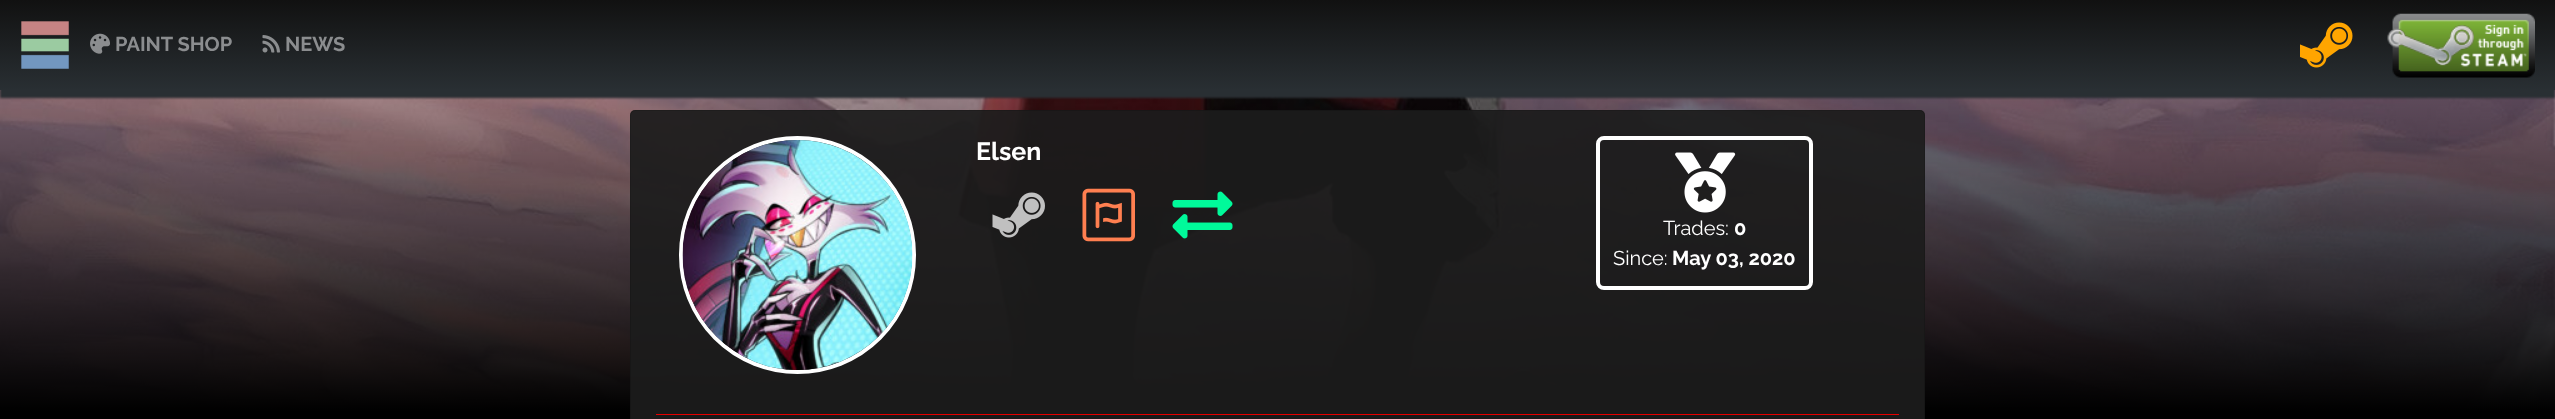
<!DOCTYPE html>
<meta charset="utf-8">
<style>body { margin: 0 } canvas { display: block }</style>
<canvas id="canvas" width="2555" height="419"></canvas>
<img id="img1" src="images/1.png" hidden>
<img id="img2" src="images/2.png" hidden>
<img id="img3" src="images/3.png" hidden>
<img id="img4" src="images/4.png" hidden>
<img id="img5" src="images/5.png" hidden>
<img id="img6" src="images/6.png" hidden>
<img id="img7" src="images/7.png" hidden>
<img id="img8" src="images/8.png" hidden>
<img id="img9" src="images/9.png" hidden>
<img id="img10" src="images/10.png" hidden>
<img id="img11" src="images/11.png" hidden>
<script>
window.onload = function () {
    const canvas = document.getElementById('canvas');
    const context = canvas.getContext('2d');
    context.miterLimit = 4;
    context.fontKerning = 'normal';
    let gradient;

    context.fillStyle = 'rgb(255, 255, 255)';
    context.fillRect(0, 0, 2555, 419);
    context.drawImage(document.getElementById('img1'), 0, 90, 2555, 329);
    context.fillStyle = 'rgb(41, 47, 51)';
    context.filter = 'blur(1px)';
    context.beginPath();
    context.rect(0, 8, 2555, 90);
    context.fill();
    context.filter = 'none';
    gradient = context.createLinearGradient(1278, 0, 1278, 90);
    gradient.addColorStop(0, 'rgb(17, 17, 17)');
    gradient.addColorStop(1, 'rgb(41, 47, 51)');
    context.fillStyle = gradient;
    context.fillRect(0, 0, 2555, 90);
    context.drawImage(document.getElementById('img2'), 21, 21, 48, 48);
    context.drawImage(document.getElementById('img3'), 90, 33, 20, 21);
    context.drawImage(document.getElementById('img4'), 262, 35, 18, 18);
    context.drawImage(document.getElementById('img5'), 2300, 22, 53, 46);
    context.drawImage(document.getElementById('img6'), 2387, 13, 148, 65);
    context.fillStyle = 'rgba(28, 28, 28, 0.93)';
    context.beginPath();
    context.roundRect(630, 110, 1295, 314, 5);
    context.fill();
    context.beginPath();
    context.roundRect(630.5, 110.5, 1294, 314, 4.5);
    context.strokeStyle = 'rgba(0, 0, 0, 0.12)';
    context.stroke();
    context.beginPath();
    context.roundRect(681, 138, 233, 234, 116.5);
    context.strokeStyle = 'rgb(255, 255, 255)';
    context.lineWidth = 4;
    context.stroke();
    context.drawImage(document.getElementById('img7'), 682, 140, 231, 230);
    context.drawImage(document.getElementById('img8'), 992, 192, 53, 46);
    context.drawImage(document.getElementById('img9'), 1082, 188, 53, 54);
    context.drawImage(document.getElementById('img10'), 1172, 191, 61, 48);
    context.beginPath();
    context.roundRect(1598, 138, 213, 150, 6);
    context.stroke();
    context.drawImage(document.getElementById('img11'), 1675, 152, 61, 61);
    context.fillStyle = 'rgb(230, 0, 0)';
    context.fillRect(656, 414, 1243, 1);
    context.font = 'bold 20px Raleway';
    context.fillStyle = 'rgb(139, 141, 143)';
    context.fillText('PAINT SHOP', 115, 51);
    context.fillText('NEWS', 285, 51);
    context.font = 'bold 25px Raleway';
    context.fillStyle = 'rgb(255, 255, 255)';
    context.fillText('Elsen', 976, 160);
    context.font = '20px Raleway';
    context.fillText('Trades:', 1663, 235);
    context.font = 'bold 20px Raleway';
    context.fillText('0', 1734, 235);
    context.font = '20px Raleway';
    context.fillText('Since:', 1613, 265);
    context.font = 'bold 20px Raleway';
    context.fillText('May 03, 2020', 1672, 265);
};
</script>
